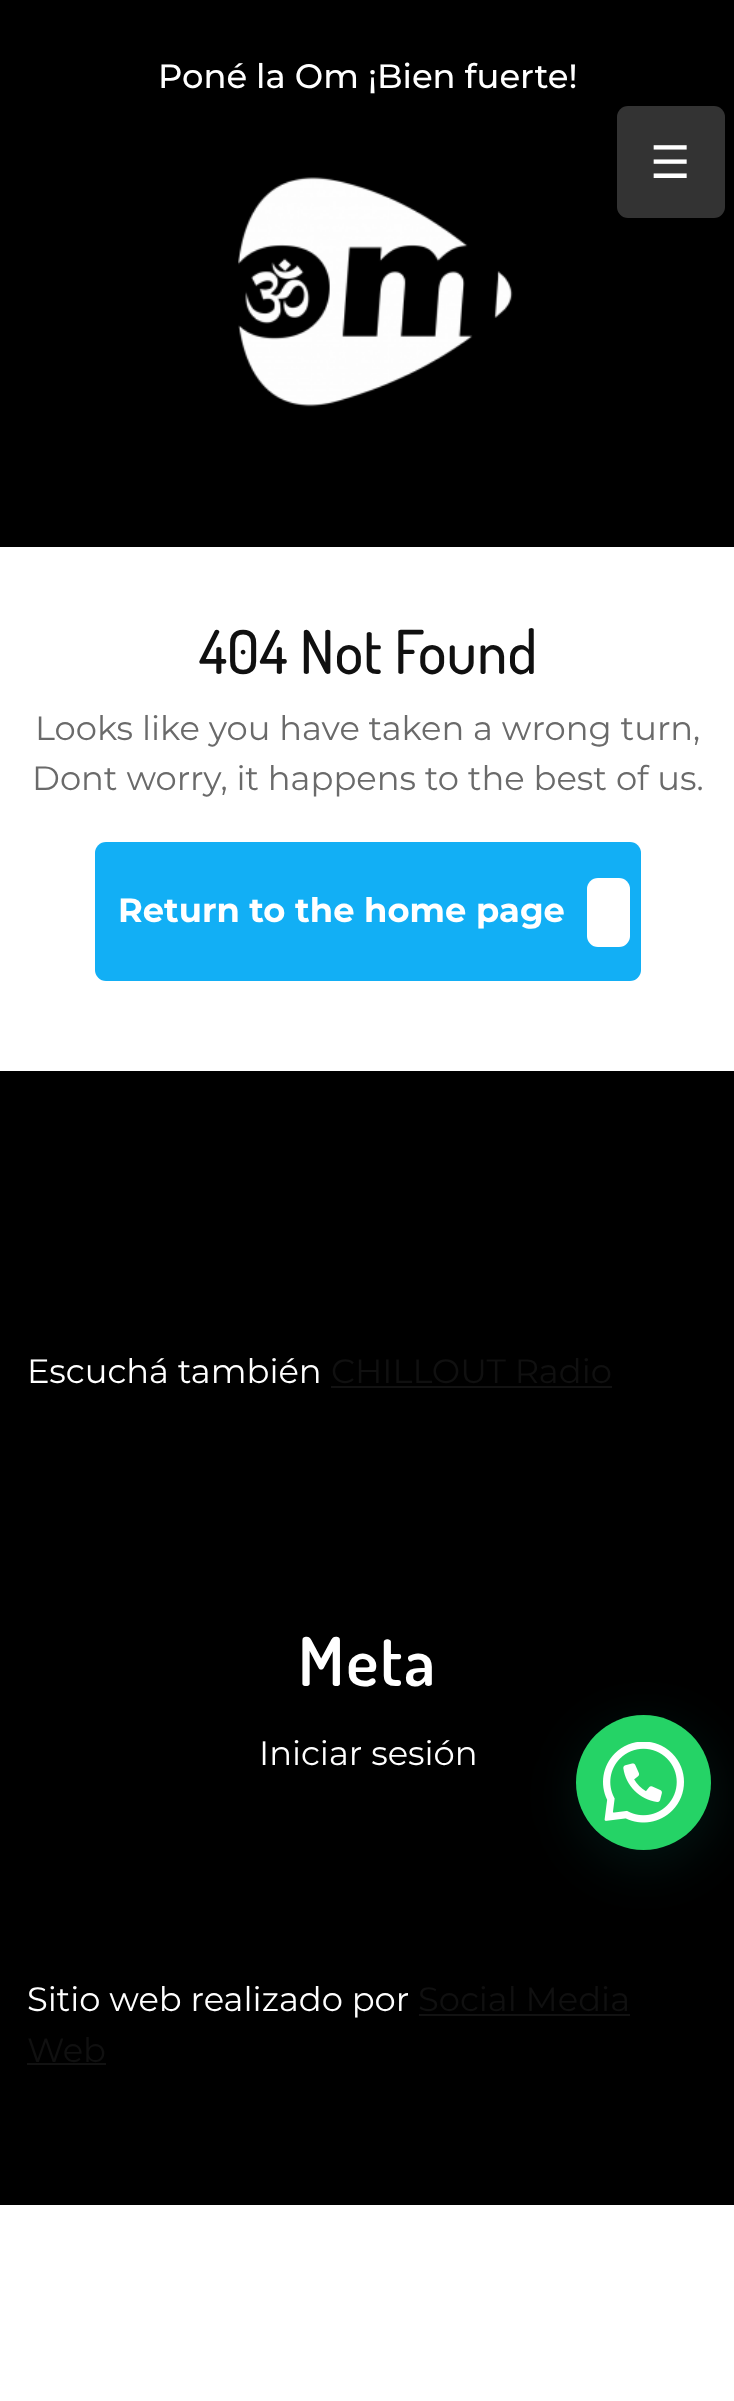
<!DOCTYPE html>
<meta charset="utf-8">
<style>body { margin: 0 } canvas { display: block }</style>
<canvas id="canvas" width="734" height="2401"></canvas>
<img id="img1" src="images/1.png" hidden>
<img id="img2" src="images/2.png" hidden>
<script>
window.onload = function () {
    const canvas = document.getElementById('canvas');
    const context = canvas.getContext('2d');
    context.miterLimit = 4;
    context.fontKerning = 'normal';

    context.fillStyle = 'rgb(255, 255, 255)';
    context.fillRect(0, 0, 734, 2401);
    context.fillStyle = 'rgb(0, 0, 0)';
    context.fillRect(0, 0, 734, 547);
    context.drawImage(document.getElementById('img1'), 238, 177, 275, 230);
    context.fillStyle = 'rgb(51, 51, 51)';
    context.beginPath();
    context.roundRect(617, 106, 108, 112, 11);
    context.fill();
    context.fillStyle = 'rgb(18, 175, 245)';
    context.beginPath();
    context.roundRect(95, 842, 546, 139, 11);
    context.fill();
    context.fillStyle = 'rgb(255, 255, 255)';
    context.beginPath();
    context.roundRect(587, 878, 43, 69, 11);
    context.fill();
    context.fillStyle = 'rgb(0, 0, 0)';
    context.fillRect(0, 1071, 734, 1134);
    context.fillStyle = 'rgb(18, 18, 18)';
    context.fillRect(331, 1386, 281, 2);
    context.fillRect(419, 2014, 211, 2);
    context.fillRect(27, 2063, 79, 2);
    context.fillStyle = 'rgba(7, 94, 84, 0.24)';
    context.filter = 'blur(27px)';
    context.beginPath();
    context.roundRect(578, 1728, 135, 135, 67.5);
    context.fill();
    context.filter = 'none';
    context.fillStyle = 'rgb(37, 211, 102)';
    context.beginPath();
    context.arc(643.5, 1782.5, 67.5, 0, 2 * Math.PI);
    context.fill();
    context.drawImage(document.getElementById('img2'), 603, 1742, 81, 81);
    context.font = '500 33.75px Montserrat';
    context.fillStyle = 'rgb(255, 255, 255)';
    context.fillText('Poné la Om ¡Bien fuerte!', 158, 88);
    context.font = '45px DejaVu Sans';
    context.fillText('☰', 650, 178);
    context.font = '500 60.5px Dosis';
    context.fillStyle = 'rgb(16, 16, 16)';
    context.fillText('404 Not Found', 199, 674);
    context.font = '33.75px Montserrat';
    context.fillStyle = 'rgb(106, 106, 106)';
    context.fillText('Looks like you have taken a wrong turn,', 35, 740);
    context.fillText('Dont worry, it happens to the best of us.', 32, 790);
    context.font = 'bold 33.75px Montserrat';
    context.fillStyle = 'rgb(255, 255, 255)';
    context.fillText('Return to the home page', 118, 922);
    context.font = '33.75px Montserrat';
    context.fillText('Escuchá también', 27, 1383);
    context.fillStyle = 'rgb(16, 16, 16)';
    context.fillText('CHILLOUT Radio', 331, 1383);
    context.letterSpacing = '2px';
    context.font = '600 67.5px Dosis';
    context.fillStyle = 'rgb(255, 255, 255)';
    context.fillText('Meta', 298, 1686);
    context.letterSpacing = '0px';
    context.font = '33.75px Montserrat';
    context.fillText('Iniciar sesión', 259, 1765);
    context.fillText('Sitio web realizado por', 27, 2011);
    context.fillStyle = 'rgb(16, 16, 16)';
    context.fillText('Social Media', 418, 2011);
    context.fillText('Web', 27, 2062);
};
</script>
